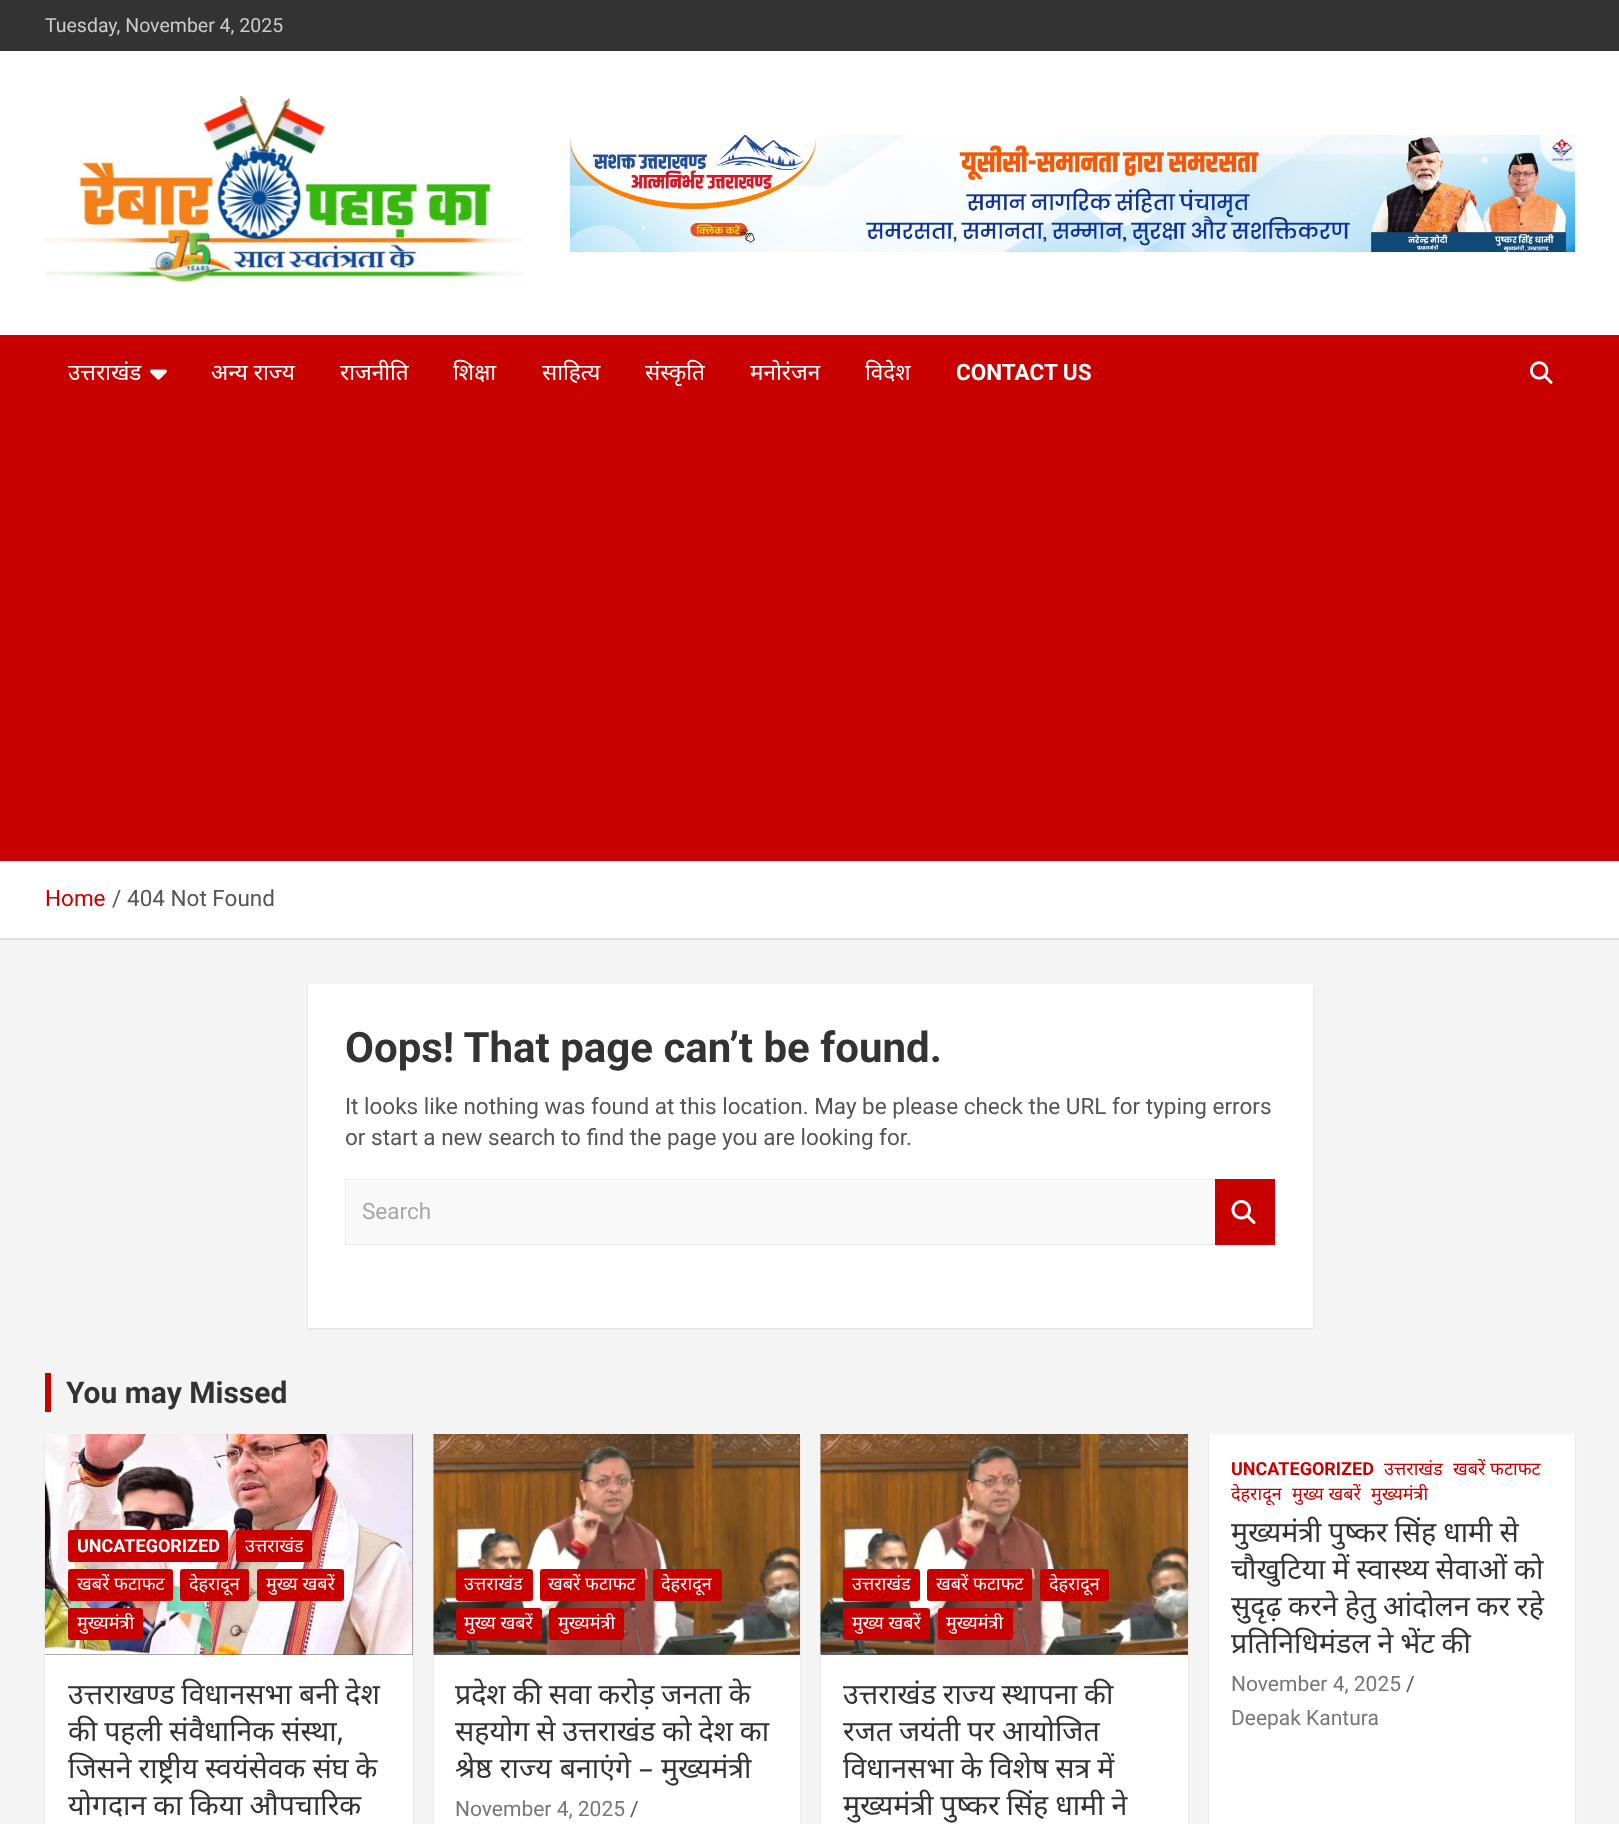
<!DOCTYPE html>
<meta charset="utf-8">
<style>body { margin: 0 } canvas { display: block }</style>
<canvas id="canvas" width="1619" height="1824"></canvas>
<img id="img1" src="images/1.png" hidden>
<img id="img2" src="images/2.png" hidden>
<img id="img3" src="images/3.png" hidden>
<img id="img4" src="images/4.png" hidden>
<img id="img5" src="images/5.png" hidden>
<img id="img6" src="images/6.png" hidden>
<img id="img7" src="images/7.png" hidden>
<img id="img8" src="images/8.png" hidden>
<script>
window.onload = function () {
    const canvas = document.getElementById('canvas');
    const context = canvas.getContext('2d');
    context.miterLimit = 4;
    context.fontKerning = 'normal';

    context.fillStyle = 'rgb(244, 244, 244)';
    context.fillRect(0, 0, 1619, 1824);
    context.fillStyle = 'rgb(220, 220, 220)';
    context.fillRect(0, 939, 1619, 1);
    context.fillStyle = 'rgb(51, 51, 51)';
    context.fillRect(0, 0, 1619, 51);
    context.fillStyle = 'rgb(255, 255, 255)';
    context.fillRect(0, 51, 1619, 284);
    context.drawImage(document.getElementById('img1'), 45, 96, 480, 187);
    context.drawImage(document.getElementById('img2'), 570, 135, 1005, 117);
    context.fillStyle = 'rgb(200, 0, 0)';
    context.fillRect(0, 335, 1619, 526);
    context.drawImage(document.getElementById('img3'), 150, 369, 17, 11);
    context.drawImage(document.getElementById('img4'), 1530, 361, 23, 23);
    context.fillStyle = 'rgb(255, 255, 255)';
    context.fillRect(0, 861, 1619, 77);
    context.fillStyle = 'rgb(230, 230, 230)';
    context.fillRect(0, 938, 1619, 1);
    context.fillStyle = 'rgba(0, 0, 0, 0.1)';
    context.filter = 'blur(1px)';
    context.beginPath();
    context.rect(308, 986, 1005, 343);
    context.fill();
    context.filter = 'none';
    context.fillStyle = 'rgb(255, 255, 255)';
    context.fillRect(308, 984, 1005, 344);
    context.fillStyle = 'rgb(249, 249, 249)';
    context.fillRect(347, 1181, 868, 63);
    context.fillStyle = 'rgb(232, 232, 232)';
    context.beginPath();
    context.moveTo(345, 1179);
    context.lineTo(1215, 1179);
    context.lineTo(1215, 1180);
    context.lineTo(346, 1180);
    context.closePath();
    context.fill();
    context.beginPath();
    context.moveTo(1215, 1245);
    context.lineTo(345, 1245);
    context.lineTo(346, 1244);
    context.lineTo(1215, 1244);
    context.closePath();
    context.fill();
    context.fillStyle = 'rgba(0, 0, 0, 0.09)';
    context.beginPath();
    context.moveTo(345, 1245);
    context.lineTo(345, 1179);
    context.lineTo(346, 1180);
    context.lineTo(346, 1244);
    context.closePath();
    context.fill();
    context.fillStyle = 'rgb(200, 0, 0)';
    context.fillRect(1215, 1179, 60, 66);
    context.drawImage(document.getElementById('img5'), 1231, 1200, 25, 24);
    context.fillRect(45, 1373, 6, 39);
    context.fillStyle = 'rgba(0, 0, 0, 0.1)';
    context.filter = 'blur(1px)';
    context.beginPath();
    context.rect(45, 1436, 368, 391);
    context.fill();
    context.filter = 'none';
    context.fillStyle = 'rgb(255, 255, 255)';
    context.fillRect(45, 1655, 368, 169);
    context.fillStyle = 'rgb(85, 85, 85)';
    context.fillRect(45, 1434, 368, 221);
    context.drawImage(document.getElementById('img6'), 45, 1434, 368, 221);
    context.fillStyle = 'rgb(200, 0, 0)';
    context.beginPath();
    context.roundRect(68, 1530, 160, 32, 3);
    context.fill();
    context.beginPath();
    context.roundRect(236, 1530, 76, 32, 3);
    context.fill();
    context.beginPath();
    context.roundRect(68, 1569, 105, 32, 3);
    context.fill();
    context.beginPath();
    context.roundRect(180, 1569, 69, 32, 3);
    context.fill();
    context.beginPath();
    context.roundRect(257, 1569, 87, 32, 3);
    context.fill();
    context.beginPath();
    context.roundRect(68, 1608, 75, 32, 3);
    context.fill();
    context.fillStyle = 'rgba(0, 0, 0, 0.1)';
    context.filter = 'blur(1px)';
    context.beginPath();
    context.rect(434, 1436, 366, 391);
    context.fill();
    context.filter = 'none';
    context.fillStyle = 'rgb(255, 255, 255)';
    context.fillRect(434, 1655, 366, 169);
    context.fillStyle = 'rgb(85, 85, 85)';
    context.fillRect(434, 1434, 366, 221);
    context.drawImage(document.getElementById('img7'), 433, 1434, 367, 221);
    context.fillStyle = 'rgb(200, 0, 0)';
    context.beginPath();
    context.roundRect(456, 1569, 77, 32, 3);
    context.fill();
    context.beginPath();
    context.roundRect(540, 1569, 105, 32, 3);
    context.fill();
    context.beginPath();
    context.roundRect(653, 1569, 69, 32, 3);
    context.fill();
    context.beginPath();
    context.roundRect(456, 1608, 86, 32, 3);
    context.fill();
    context.beginPath();
    context.roundRect(549, 1608, 75, 32, 3);
    context.fill();
    context.fillStyle = 'rgba(0, 0, 0, 0.1)';
    context.filter = 'blur(1px)';
    context.beginPath();
    context.rect(821, 1436, 367, 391);
    context.fill();
    context.filter = 'none';
    context.fillStyle = 'rgb(255, 255, 255)';
    context.fillRect(821, 1655, 367, 169);
    context.fillStyle = 'rgb(85, 85, 85)';
    context.fillRect(821, 1654, 367, 1);
    context.drawImage(document.getElementById('img8'), 820, 1434, 368, 221);
    context.fillStyle = 'rgb(200, 0, 0)';
    context.beginPath();
    context.roundRect(843, 1569, 77, 32, 3);
    context.fill();
    context.beginPath();
    context.roundRect(927, 1569, 105, 32, 3);
    context.fill();
    context.beginPath();
    context.roundRect(1040, 1569, 69, 32, 3);
    context.fill();
    context.beginPath();
    context.roundRect(843, 1608, 87, 32, 3);
    context.fill();
    context.beginPath();
    context.roundRect(938, 1608, 75, 32, 3);
    context.fill();
    context.fillStyle = 'rgba(0, 0, 0, 0.1)';
    context.filter = 'blur(1px)';
    context.beginPath();
    context.rect(1209, 1436, 366, 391);
    context.fill();
    context.filter = 'none';
    context.fillStyle = 'rgb(255, 255, 255)';
    context.fillRect(1209, 1434, 366, 390);
    context.font = '19.5px Roboto';
    context.fillStyle = 'rgb(204, 204, 204)';
    context.fillText('Tuesday, November 4, 2025', 45, 32);
    context.font = '22.5px Noto Sans';
    context.fillStyle = 'rgb(255, 255, 255)';
    context.fillText('उत्तराखंड', 68, 380);
    context.fillText('अन्य राज्य', 211, 380);
    context.fillText('राजनीति', 340, 380);
    context.fillText('शिक्षा', 453, 380);
    context.fillText('साहित्य', 542, 380);
    context.fillText('संस्कृति', 645, 380);
    context.fillText('मनोरंजन', 750, 380);
    context.fillText('विदेश', 865, 380);
    context.font = 'bold 22.5px Roboto';
    context.fillText('CONTACT US', 956, 380);
    context.font = '22.5px Roboto';
    context.fillStyle = 'rgb(200, 0, 0)';
    context.fillText('Home', 45, 906);
    context.fillStyle = 'rgb(85, 85, 85)';
    context.fillText('/', 112, 906);
    context.fillText('404 Not Found', 127, 906);
    context.font = 'bold 42px Roboto';
    context.fillStyle = 'rgb(51, 51, 51)';
    context.fillText('Oops! That page can’t be found.', 345, 1062);
    context.font = '22.5px Roboto';
    context.fillStyle = 'rgb(85, 85, 85)';
    context.fillText('It looks like nothing was found at this location. May be please check the URL for typing errors', 345, 1114);
    context.fillText('or start a new search to find the page you are looking for.', 345, 1145);
    context.fillStyle = 'rgb(167, 167, 167)';
    context.fillText('Search', 362, 1219);
    context.font = 'bold 30px Roboto';
    context.fillStyle = 'rgb(51, 51, 51)';
    context.fillText('You may Missed', 66, 1403);
    context.font = 'bold 18px Roboto';
    context.fillStyle = 'rgb(255, 255, 255)';
    context.fillText('UNCATEGORIZED', 77, 1552);
    context.font = '18px Noto Sans';
    context.fillText('उत्तराखंड', 245, 1552);
    context.fillText('खबरें फटाफट', 77, 1590);
    context.fillText('देहरादून', 189, 1590);
    context.fillText('मुख्य खबरें', 266, 1590);
    context.fillText('मुख्यमंत्री', 77, 1629);
    context.wordSpacing = '-0.5px';
    context.font = '28.5px Noto Sans';
    context.fillStyle = 'rgb(51, 51, 51)';
    context.fillText('उत्तराखण्ड विधानसभा बनी देश', 68, 1704);
    context.fillText('की पहली संवैधानिक संस्था,', 68, 1741);
    context.fillText('जिसने राष्ट्रीय स्वयंसेवक संघ के', 68, 1778);
    context.fillText('योगदान का किया औपचारिक', 68, 1815);
    context.wordSpacing = '0px';
    context.font = '18px Noto Sans';
    context.fillStyle = 'rgb(255, 255, 255)';
    context.fillText('उत्तराखंड', 464, 1590);
    context.fillText('खबरें फटाफट', 548, 1590);
    context.fillText('देहरादून', 661, 1590);
    context.fillText('मुख्य खबरें', 464, 1629);
    context.fillText('मुख्यमंत्री', 558, 1629);
    context.wordSpacing = '-0.5px';
    context.font = '28.5px Noto Sans';
    context.fillStyle = 'rgb(51, 51, 51)';
    context.fillText('प्रदेश की सवा करोड़ जनता के', 455, 1704);
    context.fillText('सहयोग से उत्तराखंड को देश का', 455, 1741);
    context.wordSpacing = '0.5px';
    context.fillText('श्रेष्ठ राज्य बनाएंगे – मुख्यमंत्री', 455, 1778);
    context.wordSpacing = '0px';
    context.font = '21px Roboto';
    context.fillStyle = 'rgb(119, 119, 119)';
    context.fillText('November 4, 2025', 455, 1816);
    context.fillStyle = 'rgb(85, 85, 85)';
    context.fillText('/', 630, 1816);
    context.font = '18px Noto Sans';
    context.fillStyle = 'rgb(255, 255, 255)';
    context.fillText('उत्तराखंड', 852, 1590);
    context.fillText('खबरें फटाफट', 936, 1590);
    context.fillText('देहरादून', 1049, 1590);
    context.fillText('मुख्य खबरें', 852, 1629);
    context.fillText('मुख्यमंत्री', 946, 1629);
    context.wordSpacing = '-0.5px';
    context.font = '28.5px Noto Sans';
    context.fillStyle = 'rgb(51, 51, 51)';
    context.fillText('उत्तराखंड राज्य स्थापना की', 843, 1704);
    context.fillText('रजत जयंती पर आयोजित', 843, 1741);
    context.fillText('विधानसभा के विशेष सत्र में', 843, 1778);
    context.fillText('मुख्यमंत्री पुष्कर सिंह धामी ने', 843, 1815);
    context.wordSpacing = '0px';
    context.font = 'bold 18px Roboto';
    context.fillStyle = 'rgb(200, 0, 0)';
    context.fillText('UNCATEGORIZED', 1231, 1475);
    context.font = '18px Noto Sans';
    context.fillText('उत्तराखंड', 1384, 1475);
    context.fillText('खबरें फटाफट', 1453, 1475);
    context.fillText('देहरादून', 1231, 1500);
    context.fillText('मुख्य खबरें', 1292, 1500);
    context.fillText('मुख्यमंत्री', 1371, 1500);
    context.wordSpacing = '-0.5px';
    context.font = '28.5px Noto Sans';
    context.fillStyle = 'rgb(51, 51, 51)';
    context.fillText('मुख्यमंत्री पुष्कर सिंह धामी से', 1231, 1542);
    context.fillText('चौखुटिया में स्वास्थ्य सेवाओं को', 1231, 1579);
    context.fillText('सुदृढ़ करने हेतु आंदोलन कर रहे', 1231, 1616);
    context.fillText('प्रतिनिधिमंडल ने भेंट की', 1231, 1653);
    context.wordSpacing = '0px';
    context.font = '21px Roboto';
    context.fillStyle = 'rgb(119, 119, 119)';
    context.fillText('November 4, 2025', 1231, 1691);
    context.fillStyle = 'rgb(85, 85, 85)';
    context.fillText('/', 1406, 1691);
    context.fillStyle = 'rgb(119, 119, 119)';
    context.fillText('Deepak Kantura', 1231, 1725);
};
</script>
